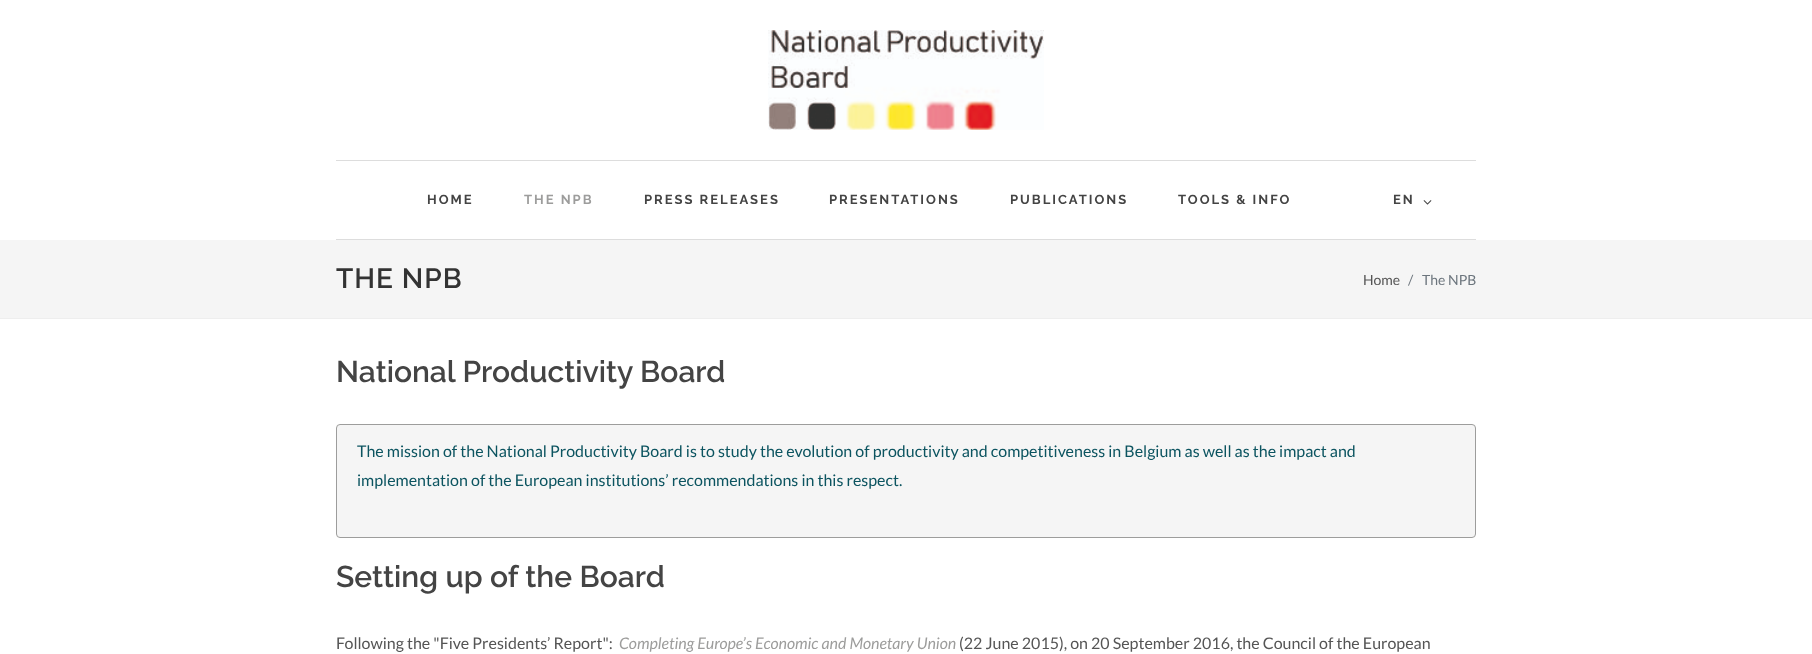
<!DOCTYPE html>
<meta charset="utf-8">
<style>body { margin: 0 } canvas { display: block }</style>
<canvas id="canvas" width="1812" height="654"></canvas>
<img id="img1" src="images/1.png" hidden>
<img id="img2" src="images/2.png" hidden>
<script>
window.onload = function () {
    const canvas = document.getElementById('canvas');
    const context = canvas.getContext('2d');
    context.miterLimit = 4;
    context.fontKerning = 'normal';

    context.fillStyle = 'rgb(255, 255, 255)';
    context.fillRect(0, 0, 1812, 654);
    context.drawImage(document.getElementById('img1'), 768, 30, 276, 100);
    context.fillStyle = 'rgb(221, 221, 221)';
    context.fillRect(336, 160, 1140, 1);
    context.fillRect(336, 239, 1140, 1);
    context.drawImage(document.getElementById('img2'), 1423, 200, 9, 5);
    context.fillStyle = 'rgb(245, 245, 245)';
    context.fillRect(0, 240, 1812, 78);
    context.fillStyle = 'rgb(238, 238, 238)';
    context.fillRect(0, 318, 1812, 1);
    context.fillStyle = 'rgb(245, 245, 245)';
    context.beginPath();
    context.roundRect(336.5, 424.5, 1139, 113, 3.5);
    context.fill();
    context.strokeStyle = 'rgb(157, 157, 156)';
    context.stroke();
    context.letterSpacing = '2px';
    context.font = 'bold 13px Raleway';
    context.fillStyle = 'rgb(68, 68, 68)';
    context.fillText('HOME', 427, 204);
    context.fillStyle = 'rgb(157, 157, 156)';
    context.fillText('THE NPB', 524, 204);
    context.fillStyle = 'rgb(68, 68, 68)';
    context.fillText('PRESS RELEASES', 644, 204);
    context.fillText('PRESENTATIONS', 829, 204);
    context.fillText('PUBLICATIONS', 1010, 204);
    context.fillText('TOOLS & INFO', 1178, 204);
    context.fillText('EN', 1393, 204);
    context.letterSpacing = '1px';
    context.font = '600 28px Raleway';
    context.fillStyle = 'rgb(51, 51, 51)';
    context.fillText('THE NPB', 336, 288);
    context.letterSpacing = '0px';
    context.font = '14px Lato';
    context.fillStyle = 'rgb(85, 85, 85)';
    context.fillText('Home', 1363, 285);
    context.fillStyle = 'rgb(108, 117, 125)';
    context.fillText('/', 1408, 285);
    context.fillText('The NPB', 1422, 285);
    context.font = '600 30px Raleway';
    context.fillStyle = 'rgb(68, 68, 68)';
    context.fillText('National Productivity Board', 336, 382);
    context.font = '16px Lato';
    context.fillStyle = 'rgb(12, 84, 96)';
    context.fillText('The mission of the National Productivity Board is to study the evolution of productivity and competitiveness in Belgium as well as the impact and', 357, 457);
    context.fillText('implementation of the European institutions’ recommendations in this respect.', 357, 486);
    context.font = '600 30px Raleway';
    context.fillStyle = 'rgb(68, 68, 68)';
    context.fillText('Setting up of the Board', 336, 587);
    context.font = '16px Lato';
    context.fillStyle = 'rgb(85, 85, 85)';
    context.fillText('Following the "Five Presidents’ Report":', 336, 649);
    context.font = 'italic 16px Lato';
    context.fillStyle = 'rgb(157, 157, 156)';
    context.fillText('Completing Europe’s Economic and Monetary Union', 619, 649);
    context.font = '16px Lato';
    context.fillStyle = 'rgb(85, 85, 85)';
    context.fillText('(22 June 2015), on 20 September 2016, the Council of the European', 959, 649);
};
</script>
